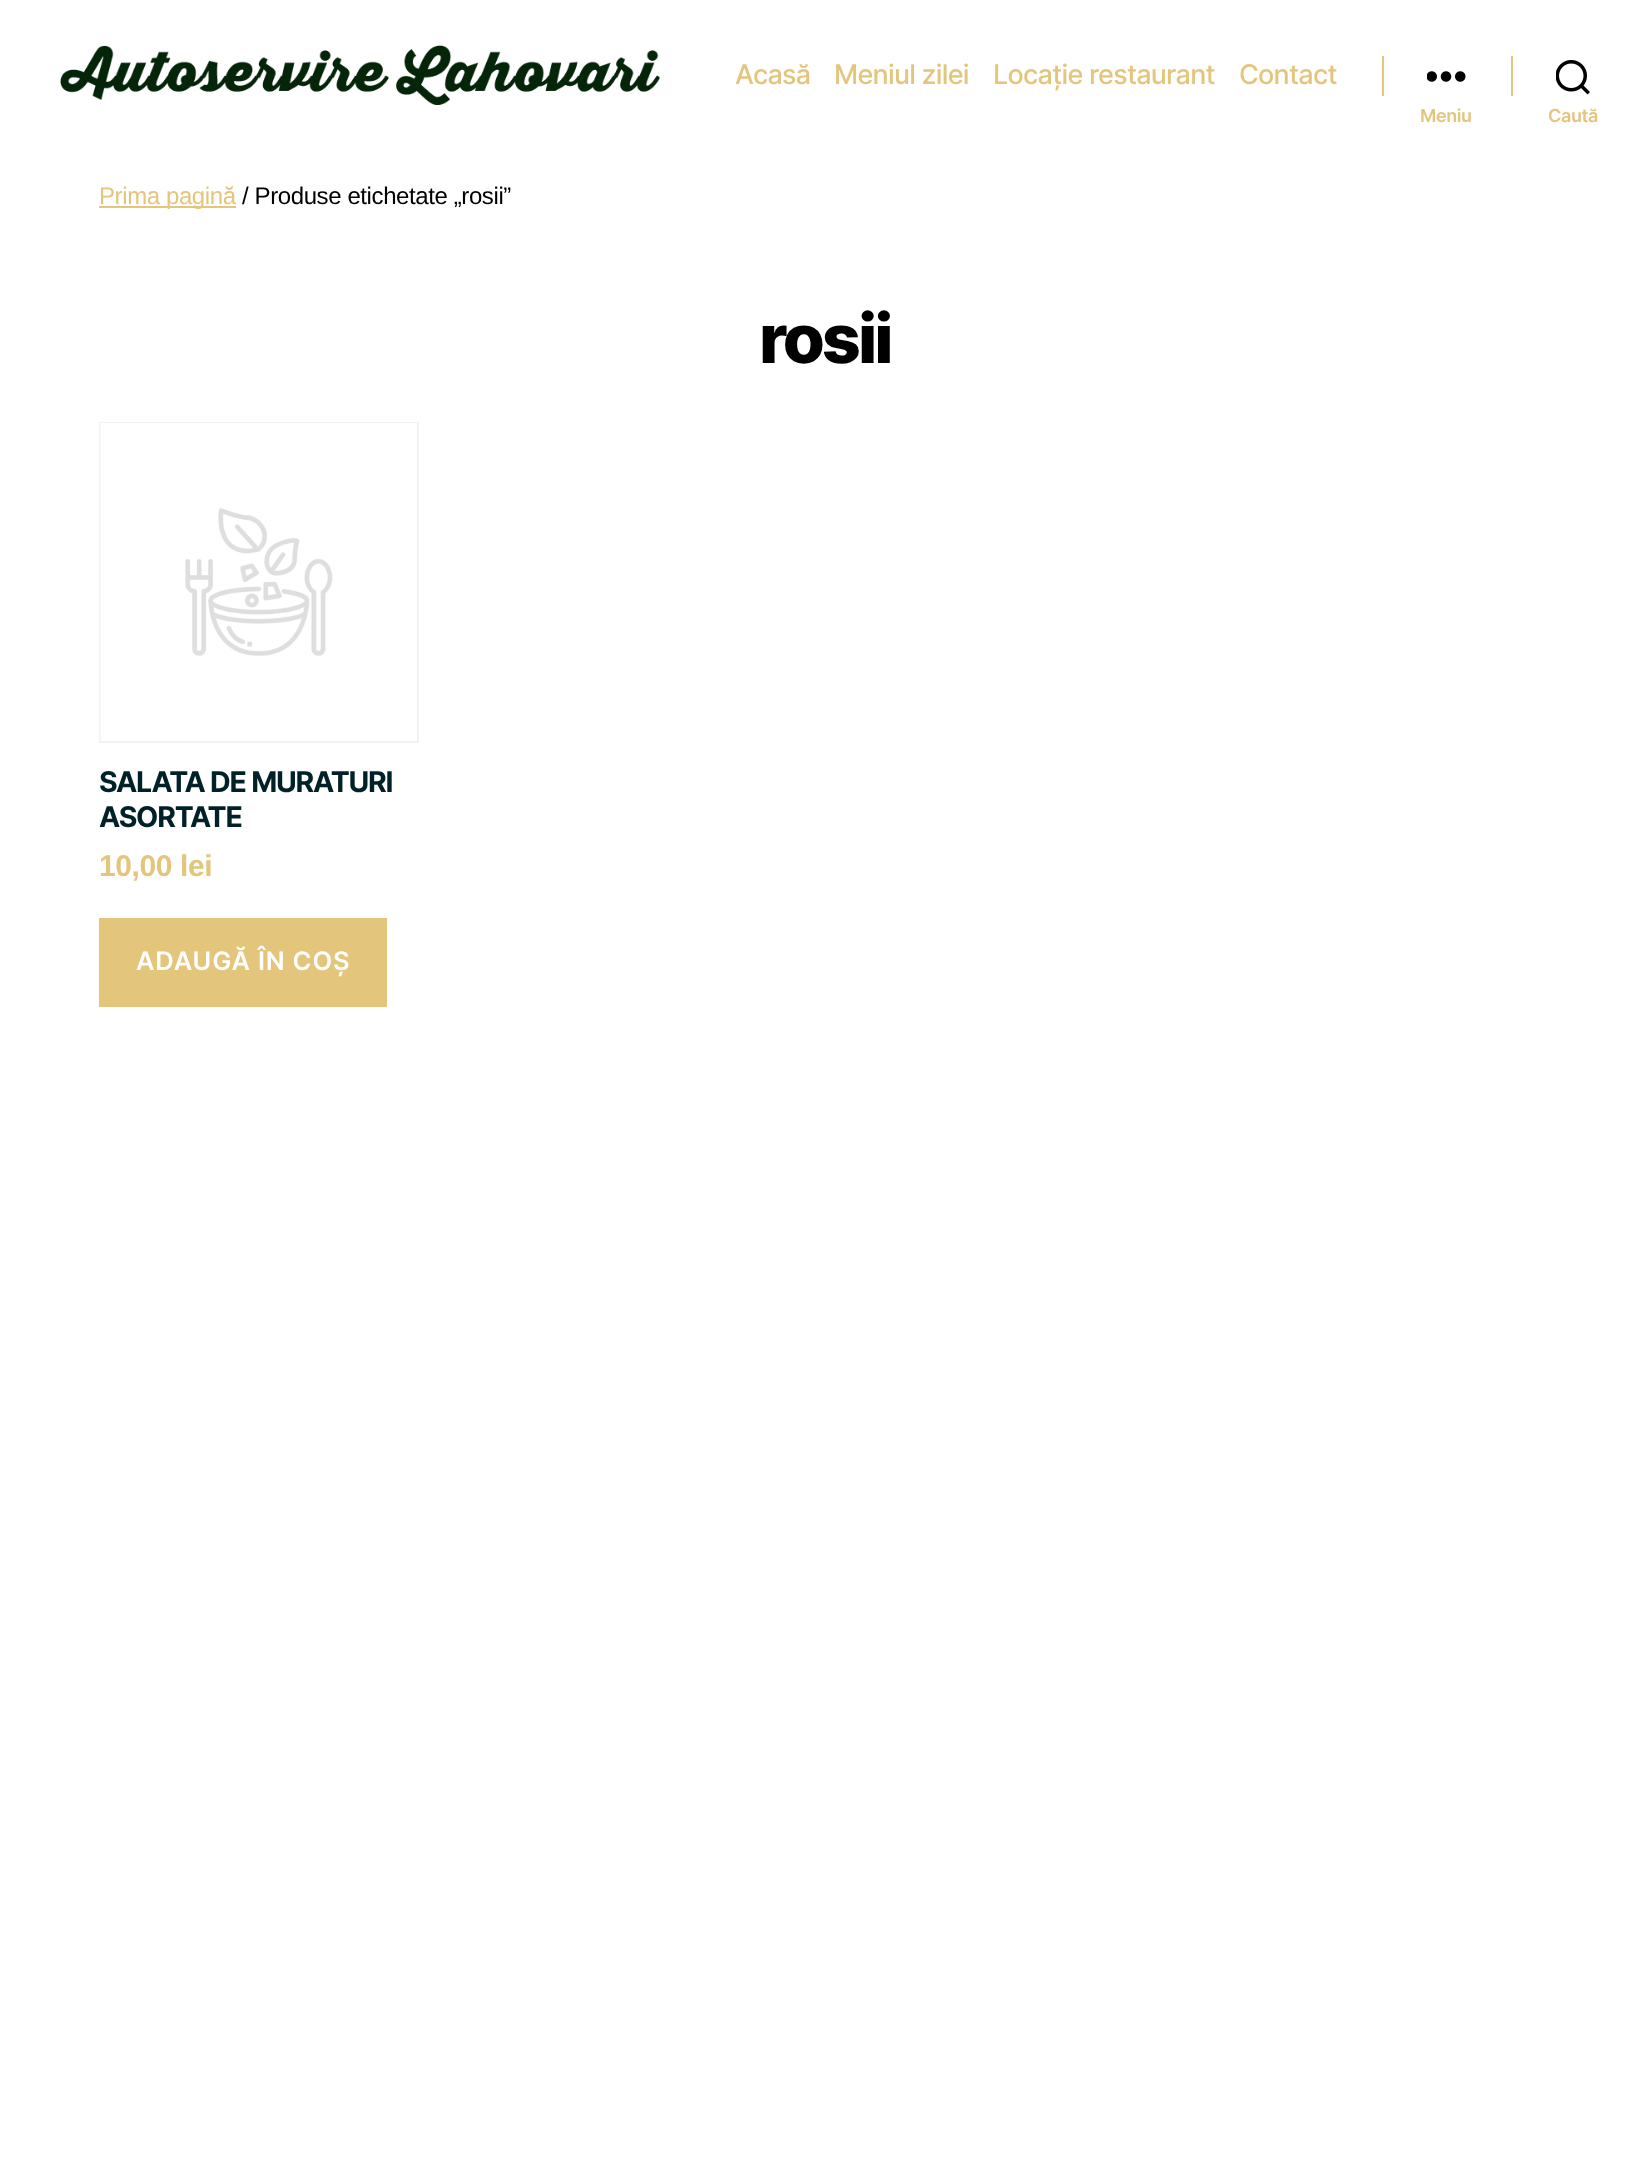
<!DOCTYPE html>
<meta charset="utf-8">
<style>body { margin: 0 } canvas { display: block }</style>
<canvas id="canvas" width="1649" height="2176"></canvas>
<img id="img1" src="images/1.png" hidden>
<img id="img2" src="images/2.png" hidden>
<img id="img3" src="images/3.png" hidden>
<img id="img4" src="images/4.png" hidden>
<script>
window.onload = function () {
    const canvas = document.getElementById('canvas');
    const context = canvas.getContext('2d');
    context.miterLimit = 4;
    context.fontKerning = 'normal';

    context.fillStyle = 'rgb(255, 255, 255)';
    context.fillRect(0, 0, 1649, 2176);
    context.drawImage(document.getElementById('img1'), 60, 45, 600, 60);
    context.fillStyle = 'rgb(227, 197, 124)';
    context.fillRect(1382, 56, 2, 40);
    context.drawImage(document.getElementById('img2'), 1427, 71, 39, 11);
    context.fillRect(1511, 56, 2, 40);
    context.drawImage(document.getElementById('img3'), 1556, 60, 34, 35);
    context.fillRect(99, 206, 137, 2);
    context.strokeStyle = 'rgb(242, 242, 242)';
    context.lineWidth = 2;
    context.strokeRect(100, 423, 318, 319);
    context.drawImage(document.getElementById('img4'), 100, 423, 317, 318);
    context.fillRect(99, 918, 288, 89);
    context.letterSpacing = '-0.75px';
    context.font = '500 27px Inter';
    context.fillText('Acasă', 735, 84);
    context.fillText('Meniul zilei', 834, 84);
    context.fillText('Locație restaurant', 993, 84);
    context.fillText('Contact', 1239, 84);
    context.letterSpacing = '-0.4px';
    context.font = '600 18px Inter';
    context.fillText('Meniu', 1420, 122);
    context.fillText('Caută', 1548, 122);
    context.font = '24px Liberation Sans';
    context.fillText('Prima pagină', 99, 204);
    context.fillStyle = 'rgb(0, 0, 0)';
    context.fillText('/ Produse etichetate „rosii”', 242, 204);
    context.letterSpacing = '-3px';
    context.font = '800 68px Inter';
    context.fillText('rosii', 759, 363);
    context.letterSpacing = '-1.2px';
    context.font = 'bold 28.5px Inter';
    context.fillStyle = 'rgb(0, 33, 40)';
    context.fillText('SALATA DE MURATURI', 99, 792);
    context.fillText('ASORTATE', 99, 827);
    context.letterSpacing = '-0.4px';
    context.font = 'bold 30px Liberation Sans';
    context.fillStyle = 'rgb(227, 197, 124)';
    context.fillText('10,00 lei', 99, 876);
    context.letterSpacing = '0.8px';
    context.font = '600 25.5px Inter';
    context.fillStyle = 'rgb(255, 255, 255)';
    context.fillText('ADAUGĂ ÎN COȘ', 136, 970);
};
</script>
